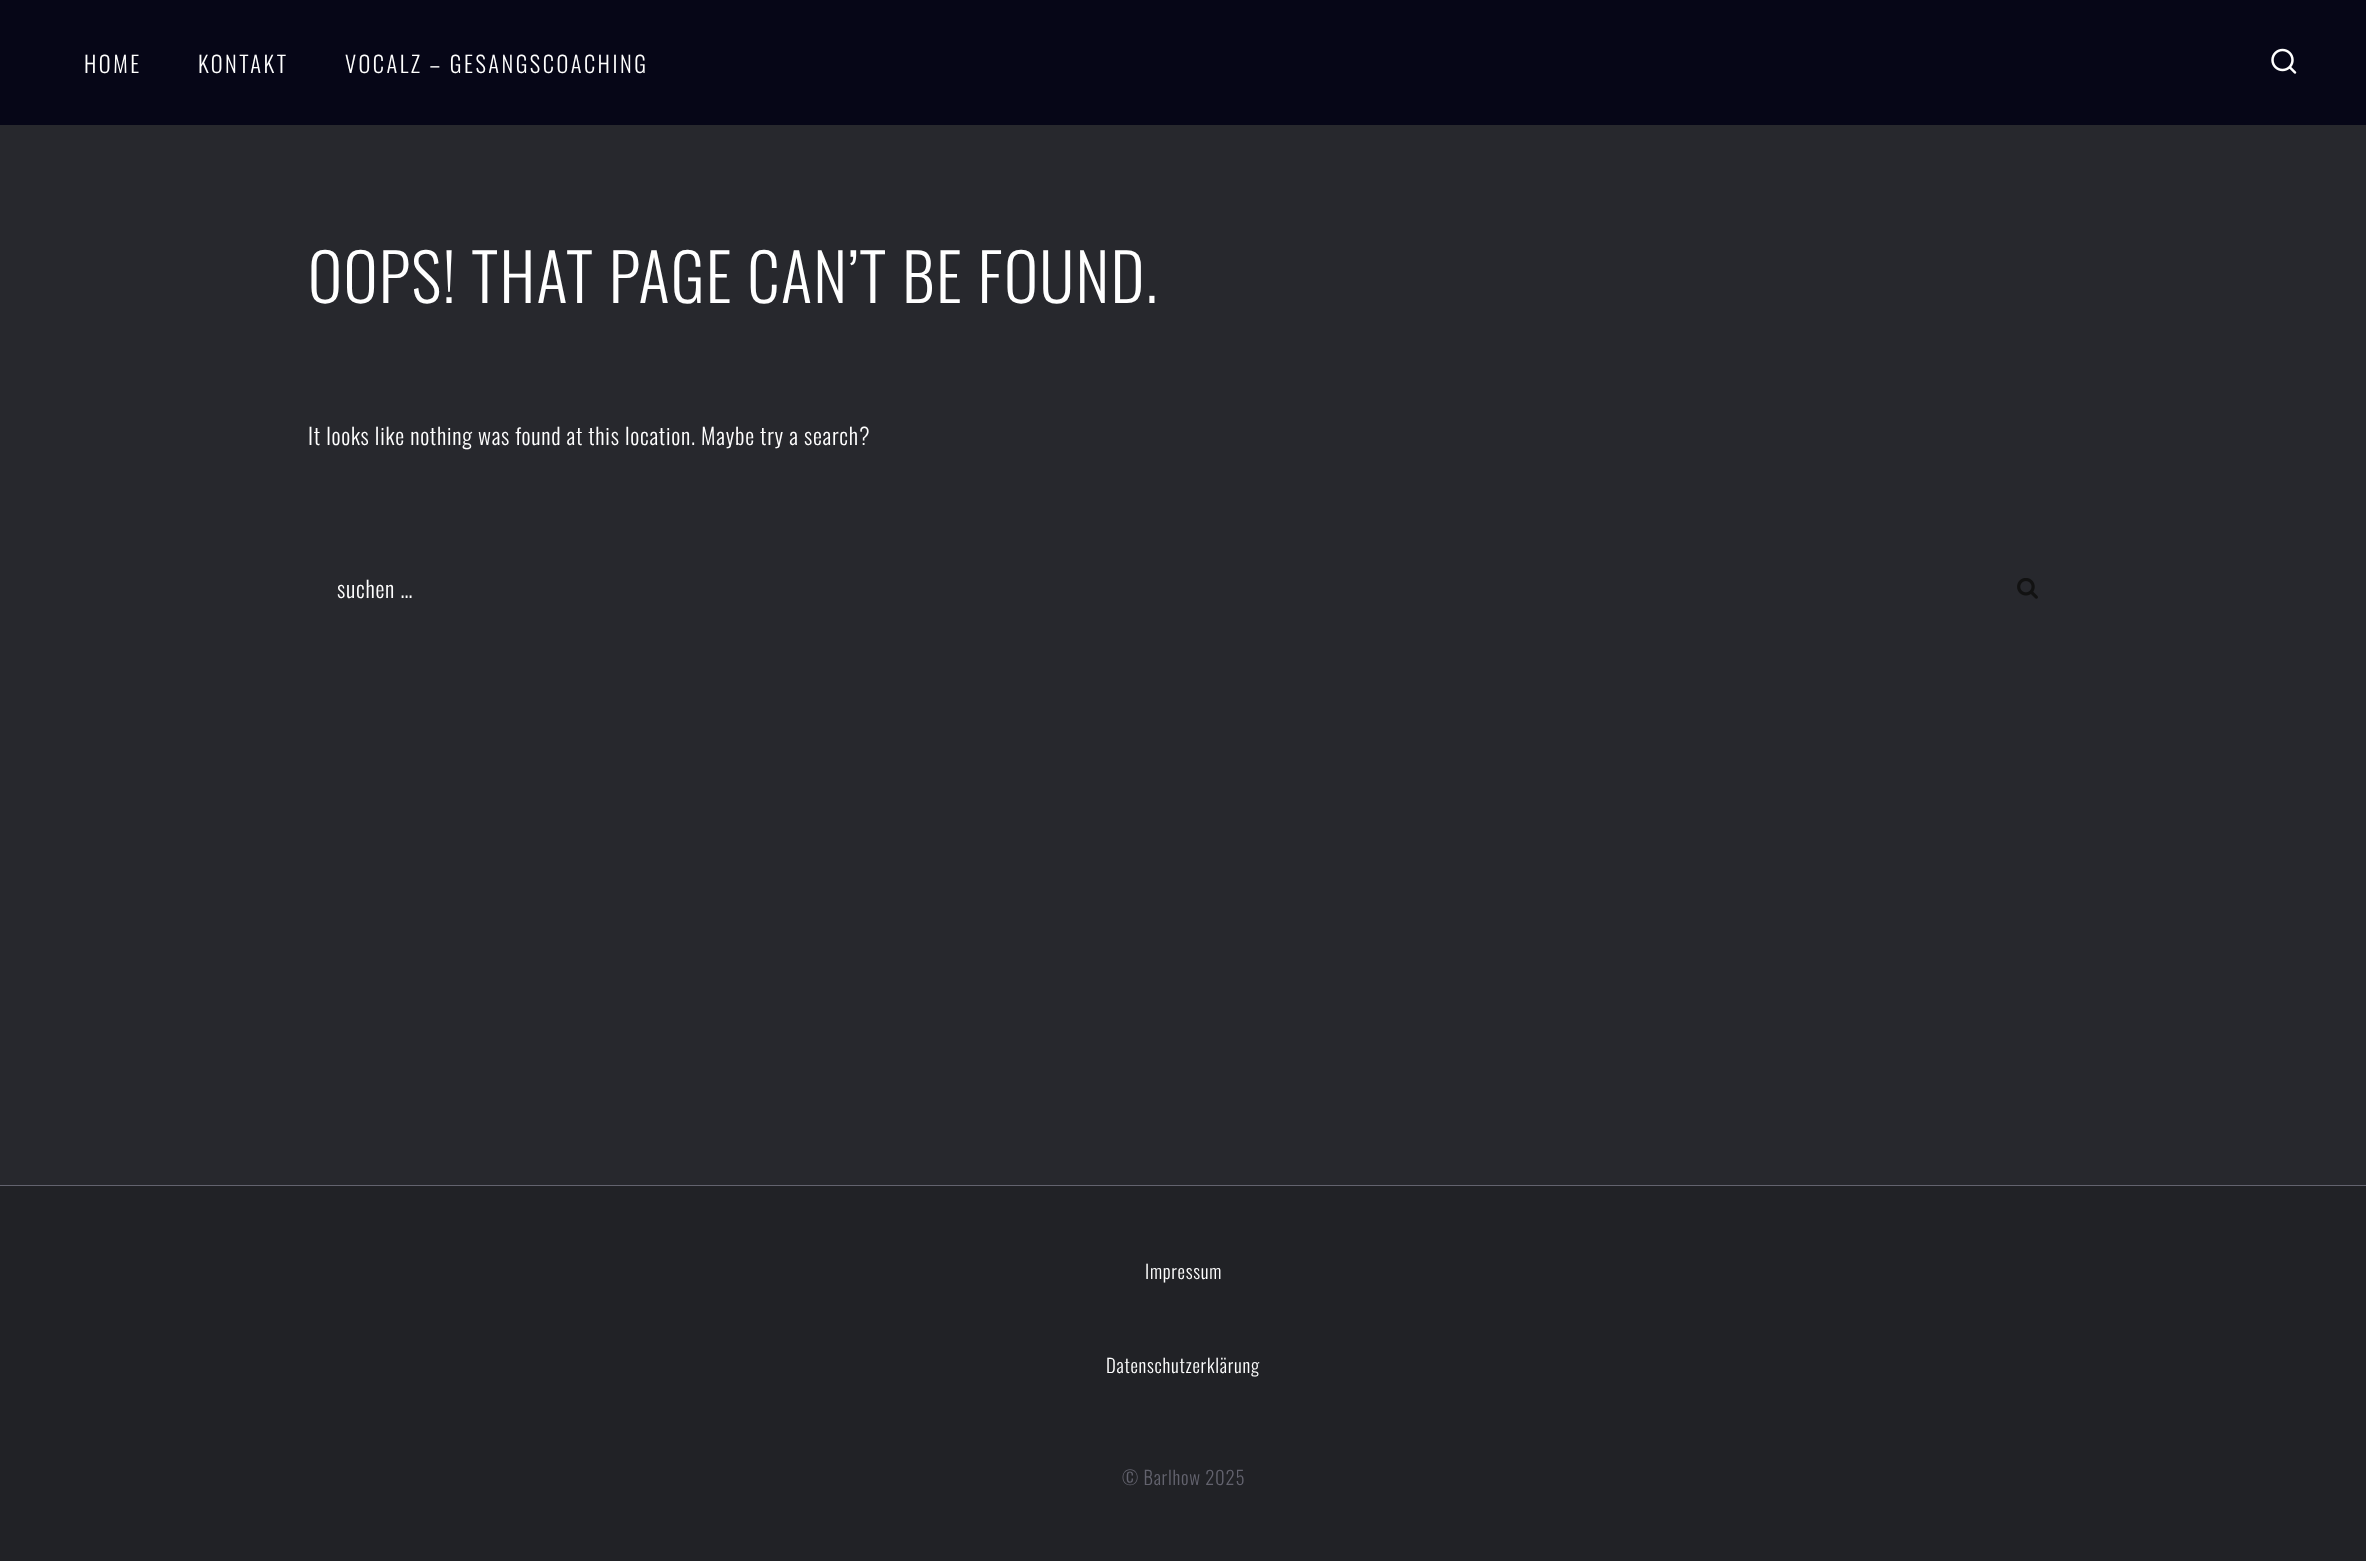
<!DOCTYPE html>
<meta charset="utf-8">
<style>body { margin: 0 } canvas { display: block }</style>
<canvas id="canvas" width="2366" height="1561"></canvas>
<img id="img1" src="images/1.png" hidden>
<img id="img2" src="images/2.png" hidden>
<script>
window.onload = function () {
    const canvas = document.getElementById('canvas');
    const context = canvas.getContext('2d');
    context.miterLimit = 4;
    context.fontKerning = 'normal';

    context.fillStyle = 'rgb(39, 40, 45)';
    context.fillRect(0, 0, 2366, 1561);
    context.fillStyle = 'rgb(6, 6, 23)';
    context.fillRect(0, 0, 2366, 125);
    context.drawImage(document.getElementById('img1'), 2271, 48, 26, 26);
    context.drawImage(document.getElementById('img2'), 2017, 578, 21, 21);
    context.fillStyle = 'rgb(33, 34, 38)';
    context.fillRect(0, 1186, 2366, 375);
    context.fillStyle = 'rgb(99, 99, 110)';
    context.fillRect(0, 1185, 2366, 1);
    context.letterSpacing = '2.5px';
    context.font = '300 22.5px Oswald';
    context.fillStyle = 'rgb(255, 255, 255)';
    context.fillText('HOME', 84, 73);
    context.fillText('KONTAKT', 198, 73);
    context.fillText('VOCALZ – GESANGSCOACHING', 345, 73);
    context.letterSpacing = '1.25px';
    context.font = '300 65px Oswald';
    context.fillText('OOPS! THAT PAGE CAN’T BE FOUND.', 308, 303);
    context.letterSpacing = '0.75px';
    context.font = '300 22.5px Oswald';
    context.fillText('It looks like nothing was found at this location. Maybe try a search?', 308, 445);
    context.fillText('suchen …', 337, 598);
    context.font = '300 18.75px Oswald';
    context.fillText('Impressum', 1145, 1279);
    context.fillText('Datenschutzerklärung', 1106, 1373);
    context.fillStyle = 'rgb(99, 99, 110)';
    context.fillText('© Barlhow 2025', 1122, 1485);
};
</script>
